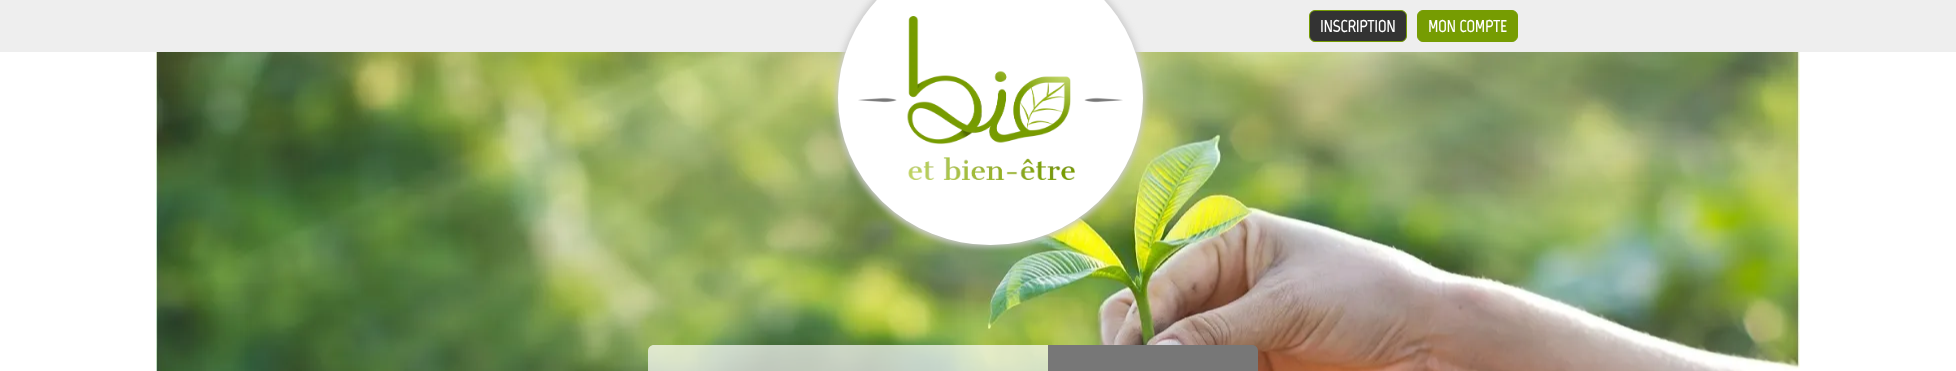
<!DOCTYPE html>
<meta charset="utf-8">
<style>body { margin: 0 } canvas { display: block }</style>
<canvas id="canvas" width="1956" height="371"></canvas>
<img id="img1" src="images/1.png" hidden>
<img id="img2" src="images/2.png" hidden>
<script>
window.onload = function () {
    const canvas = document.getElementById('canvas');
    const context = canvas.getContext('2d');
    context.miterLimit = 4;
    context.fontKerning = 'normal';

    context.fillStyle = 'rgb(255, 255, 255)';
    context.fillRect(0, 0, 1956, 371);
    context.drawImage(document.getElementById('img1'), 156, 52, 1644, 319);
    context.fillStyle = 'rgb(238, 238, 238)';
    context.fillRect(0, 0, 1956, 52);
    context.fillStyle = 'rgb(204, 204, 204)';
    context.filter = 'blur(3px)';
    context.beginPath();
    context.roundRect(836, -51, 309, 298, 149);
    context.fill();
    context.filter = 'none';
    context.fillStyle = 'rgb(255, 255, 255)';
    context.beginPath();
    context.ellipse(990.5, 98, 152.5, 147, 0, 0, 2 * Math.PI);
    context.fill();
    context.drawImage(document.getElementById('img2'), 858, 16, 265, 164);
    context.fillStyle = 'rgba(255, 255, 255, 0.7)';
    context.beginPath();
    context.moveTo(654, 345);
    context.lineTo(1048, 345);
    context.lineTo(1048, 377);
    context.lineTo(654, 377);
    context.bezierCurveTo(650.5, 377, 648, 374.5, 648, 371);
    context.lineTo(648, 351);
    context.bezierCurveTo(648, 347.5, 650.5, 345, 654, 345);
    context.closePath();
    context.fill();
    context.fillStyle = 'rgb(119, 119, 119)';
    context.beginPath();
    context.moveTo(1048, 345);
    context.lineTo(1252, 345);
    context.bezierCurveTo(1255.5, 345, 1258, 347.5, 1258, 351);
    context.lineTo(1258, 371);
    context.bezierCurveTo(1258, 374.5, 1255.5, 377, 1252, 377);
    context.lineTo(1048, 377);
    context.closePath();
    context.fill();
    context.fillStyle = 'rgb(51, 51, 51)';
    context.beginPath();
    context.roundRect(1309.5, 10.5, 97, 31, 5.5);
    context.fill();
    context.strokeStyle = 'rgb(118, 156, 2)';
    context.stroke();
    context.fillStyle = 'rgb(118, 156, 2)';
    context.beginPath();
    context.roundRect(1417.5, 10.5, 100, 31, 5.5);
    context.fill();
    context.stroke();
    context.font = 'bold 16.5px Marvel';
    context.fillStyle = 'rgb(255, 255, 255)';
    context.fillText('INSCRIPTION', 1320, 32);
    context.fillText('MON COMPTE', 1428, 32);
};
</script>
